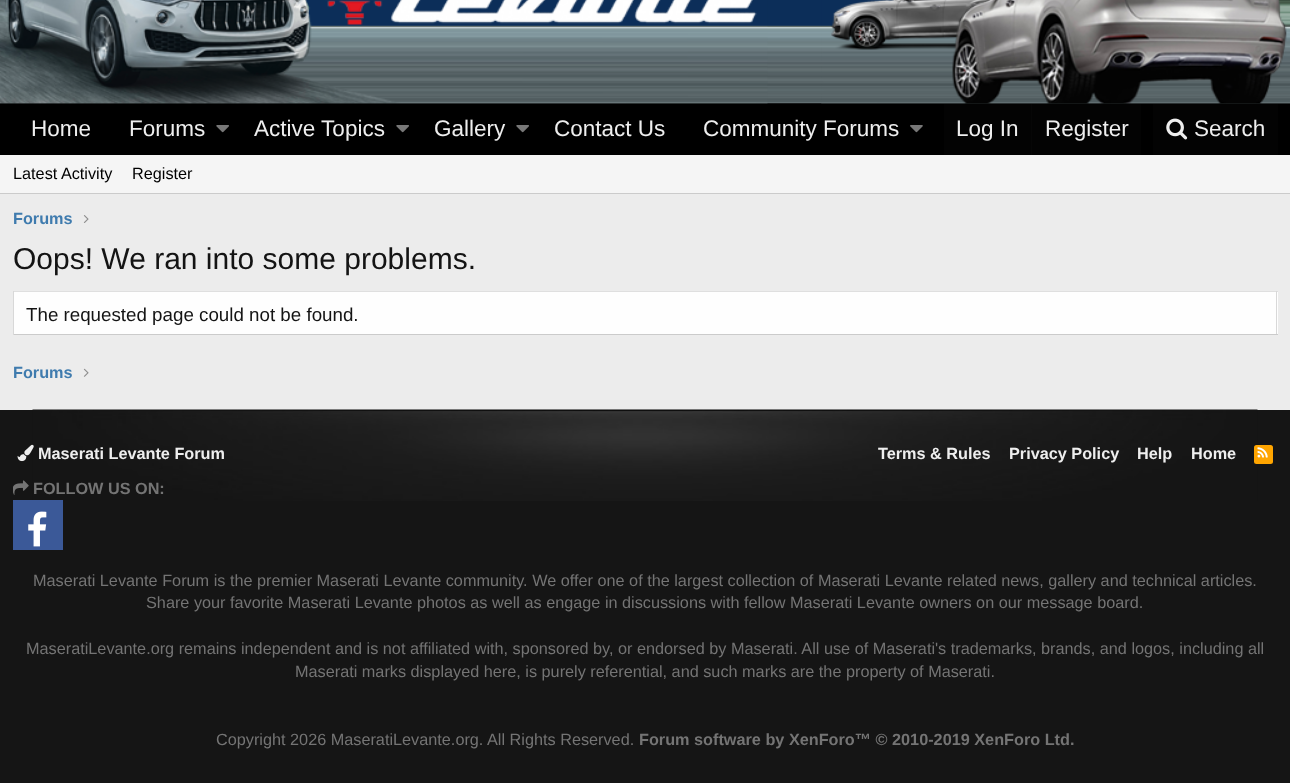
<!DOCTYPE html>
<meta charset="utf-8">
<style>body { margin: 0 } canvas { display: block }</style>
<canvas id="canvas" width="1290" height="783"></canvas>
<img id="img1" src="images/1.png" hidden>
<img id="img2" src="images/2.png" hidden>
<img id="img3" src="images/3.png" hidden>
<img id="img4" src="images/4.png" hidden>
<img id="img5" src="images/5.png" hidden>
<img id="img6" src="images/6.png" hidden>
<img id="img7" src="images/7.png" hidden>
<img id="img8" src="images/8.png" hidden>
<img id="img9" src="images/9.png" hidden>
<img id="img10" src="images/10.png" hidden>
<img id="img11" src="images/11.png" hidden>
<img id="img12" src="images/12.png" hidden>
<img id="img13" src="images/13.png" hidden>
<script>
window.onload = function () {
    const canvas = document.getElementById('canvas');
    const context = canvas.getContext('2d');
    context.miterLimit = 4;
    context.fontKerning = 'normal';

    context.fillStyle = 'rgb(236, 236, 236)';
    context.fillRect(0, 0, 1290, 783);
    context.fillStyle = 'rgb(0, 0, 0)';
    context.fillRect(0, 103, 1290, 52);
    context.drawImage(document.getElementById('img1'), 0, 0, 1290, 104);
    context.drawImage(document.getElementById('img2'), 0, 0, 768, 104);
    context.drawImage(document.getElementById('img3'), 821, 0, 469, 104);
    context.drawImage(document.getElementById('img4'), 216, 125, 13, 8);
    context.drawImage(document.getElementById('img4'), 396, 125, 13, 8);
    context.drawImage(document.getElementById('img4'), 516, 125, 13, 8);
    context.drawImage(document.getElementById('img5'), 910, 125, 13, 8);
    context.fillStyle = 'rgb(3, 3, 3)';
    context.fillRect(944, 104, 197, 51);
    context.fillStyle = 'rgb(6, 6, 6)';
    context.fillRect(1031, 104, 1, 51);
    context.fillStyle = 'rgb(3, 3, 3)';
    context.fillRect(1153, 104, 125, 51);
    context.drawImage(document.getElementById('img6'), 1166, 118, 22, 22);
    context.fillStyle = 'rgb(245, 245, 245)';
    context.fillRect(0, 155, 1290, 38);
    context.fillStyle = 'rgb(203, 203, 203)';
    context.fillRect(0, 193, 1290, 1);
    context.drawImage(document.getElementById('img7'), 83, 215, 6, 8);
    context.fillStyle = 'rgb(254, 254, 254)';
    context.fillRect(14, 292, 1264, 42);
    context.fillStyle = 'rgb(223, 223, 223)';
    context.fillRect(13, 291, 1265, 1);
    context.fillStyle = 'rgb(216, 216, 216)';
    context.fillRect(1276, 291, 1, 44);
    context.fillStyle = 'rgb(203, 203, 203)';
    context.fillRect(13, 334, 1265, 1);
    context.fillStyle = 'rgb(216, 216, 216)';
    context.fillRect(13, 291, 1, 44);
    context.drawImage(document.getElementById('img8'), 83, 368, 6, 9);
    context.fillStyle = 'rgb(21, 21, 21)';
    context.fillRect(0, 410, 1290, 373);
    context.drawImage(document.getElementById('img9'), 32, 409, 1226, 92);
    context.drawImage(document.getElementById('img10'), 17, 444, 17, 18);
    context.fillStyle = 'rgb(255, 165, 0)';
    context.beginPath();
    context.roundRect(1254, 445, 19, 19, 2.5);
    context.fill();
    context.drawImage(document.getElementById('img11'), 1257, 447, 11, 11);
    context.drawImage(document.getElementById('img12'), 13, 480, 16, 15);
    context.fillStyle = 'rgb(59, 89, 152)';
    context.fillRect(13, 500, 50, 50);
    context.drawImage(document.getElementById('img13'), 28, 511, 19, 36);
    context.font = '22.5px Liberation Sans';
    context.fillStyle = 'rgb(238, 238, 238)';
    context.fillText('Home', 31, 136);
    context.fillText('Forums', 129, 136);
    context.fillText('Active Topics', 254, 136);
    context.fillText('Gallery', 434, 136);
    context.fillText('Contact Us', 554, 136);
    context.fillText('Community Forums', 703, 136);
    context.fillText('Log In', 956, 136);
    context.fillText('Register', 1045, 136);
    context.fillText('Search', 1194, 136);
    context.font = '16.25px Liberation Sans';
    context.fillStyle = 'rgb(0, 0, 0)';
    context.fillText('Latest Activity', 13, 179);
    context.fillText('Register', 132, 179);
    context.font = 'bold 16.25px Liberation Sans';
    context.fillStyle = 'rgb(63, 123, 174)';
    context.fillText('Forums', 13, 224);
    context.font = '30px Liberation Sans';
    context.fillStyle = 'rgb(20, 20, 20)';
    context.fillText('Oops! We ran into some problems.', 13, 269);
    context.font = '18.75px Liberation Sans';
    context.fillText('The requested page could not be found.', 26, 321);
    context.font = 'bold 16.25px Liberation Sans';
    context.fillStyle = 'rgb(63, 123, 174)';
    context.fillText('Forums', 13, 378);
    context.fillStyle = 'rgb(238, 238, 238)';
    context.fillText('Maserati Levante Forum', 38, 459);
    context.fillText('Terms & Rules', 878, 459);
    context.fillText('Privacy Policy', 1009, 459);
    context.fillText('Help', 1137, 459);
    context.fillText('Home', 1191, 459);
    context.fillStyle = 'rgb(116, 116, 116)';
    context.fillText('FOLLOW US ON:', 33, 494);
    context.font = '16.25px Liberation Sans';
    context.fillText('Maserati Levante Forum is the premier Maserati Levante community. We offer one of the largest collection of Maserati Levante related news, gallery and technical articles.', 33, 586);
    context.fillText('Share your favorite Maserati Levante photos as well as engage in discussions with fellow Maserati Levante owners on our message board.', 146, 608);
    context.fillText('MaseratiLevante.org remains independent and is not affiliated with, sponsored by, or endorsed by Maserati. All use of Maserati\'s trademarks, brands, and logos, including all', 26, 654);
    context.fillText('Maserati marks displayed here, is purely referential, and such marks are the property of Maserati.', 295, 677);
    context.fillText('Copyright 2026 MaseratiLevante.org. All Rights Reserved.', 216, 745);
    context.font = 'bold 16.25px Liberation Sans';
    context.fillText('Forum software by XenForo™ © 2010-2019 XenForo Ltd.', 639, 745);
};
</script>
